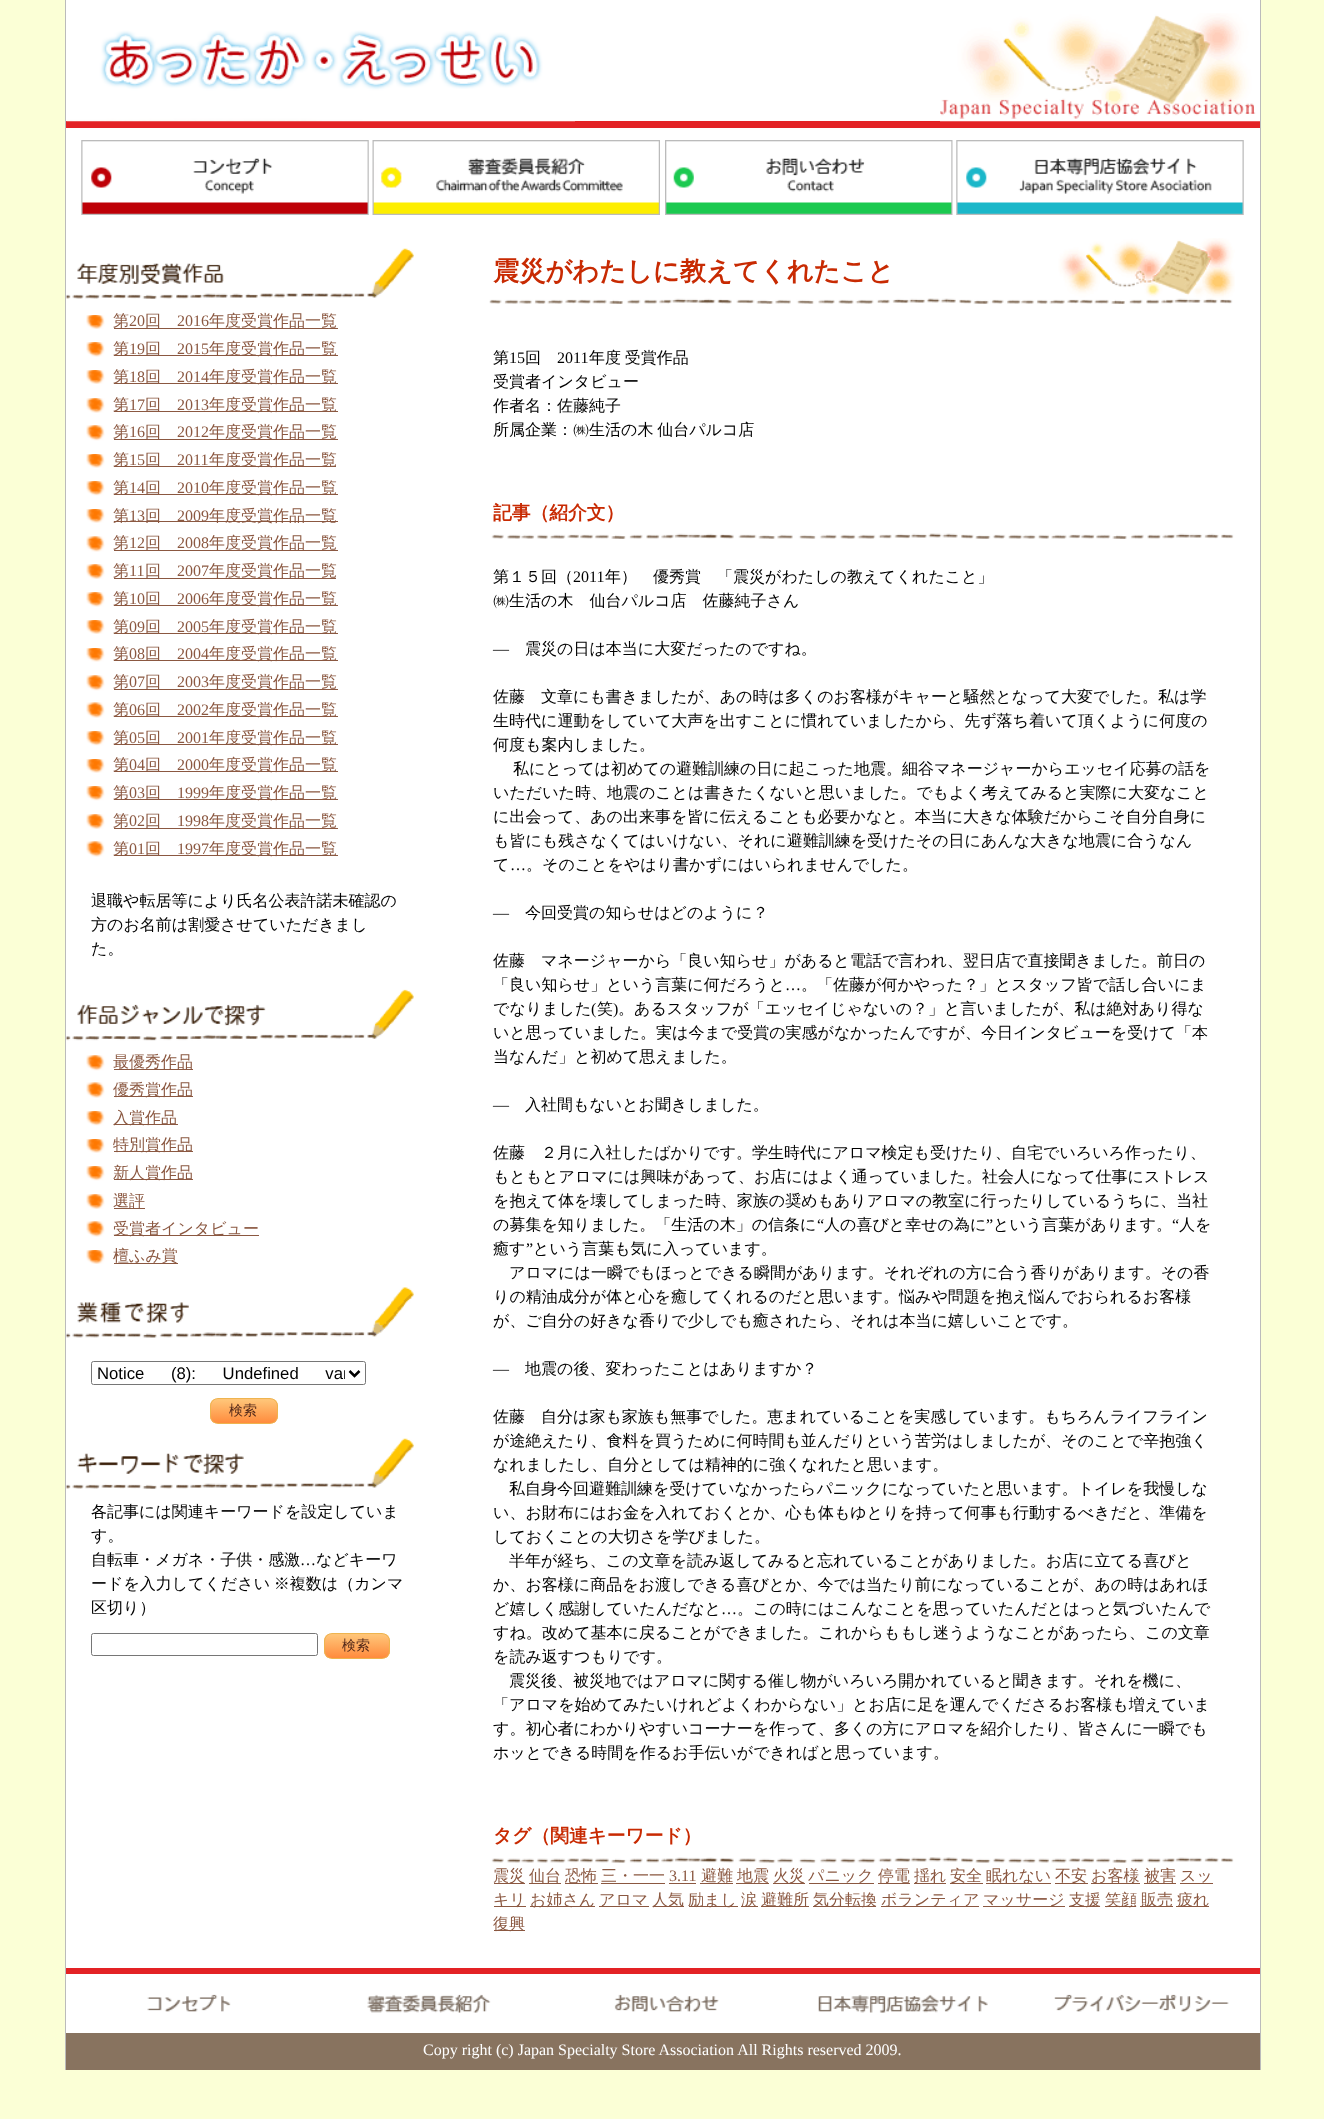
<!DOCTYPE html>
<meta charset="utf-8">
<style>body { margin: 0 } canvas { display: block }</style>
<canvas id="canvas" width="1324" height="2119"></canvas>
<img id="img1" src="images/1.png" hidden>
<img id="img2" src="images/2.png" hidden>
<img id="img3" src="images/3.png" hidden>
<img id="img4" src="images/4.png" hidden>
<img id="img5" src="images/5.png" hidden>
<img id="img6" src="images/6.png" hidden>
<img id="img7" src="images/7.png" hidden>
<img id="img8" src="images/8.png" hidden>
<img id="img9" src="images/9.png" hidden>
<img id="img10" src="images/10.png" hidden>
<img id="img11" src="images/11.png" hidden>
<img id="img12" src="images/12.png" hidden>
<img id="img13" src="images/13.png" hidden>
<img id="img14" src="images/14.png" hidden>
<img id="img15" src="images/15.png" hidden>
<img id="img16" src="images/16.png" hidden>
<img id="img17" src="images/17.png" hidden>
<img id="img18" src="images/18.png" hidden>
<img id="img19" src="images/19.png" hidden>
<img id="img20" src="images/20.png" hidden>
<img id="img21" src="images/21.png" hidden>
<img id="img22" src="images/22.png" hidden>
<img id="img23" src="images/23.png" hidden>
<img id="img24" src="images/24.png" hidden>
<img id="img25" src="images/25.png" hidden>
<img id="img26" src="images/26.png" hidden>
<img id="img27" src="images/27.png" hidden>
<img id="img28" src="images/28.png" hidden>
<img id="img29" src="images/29.png" hidden>
<img id="img30" src="images/30.png" hidden>
<img id="img31" src="images/31.png" hidden>
<script>
window.onload = function () {
    const canvas = document.getElementById('canvas');
    const context = canvas.getContext('2d');
    context.miterLimit = 4;
    context.fontKerning = 'normal';
    let gradient;

    context.fillStyle = 'rgb(251, 255, 214)';
    context.fillRect(0, 0, 1324, 2119);
    context.fillStyle = 'rgb(255, 255, 255)';
    context.fillRect(66, 0, 1194, 2033);
    context.fillStyle = 'rgb(187, 187, 187)';
    context.fillRect(1260, 0, 1, 2070);
    context.fillRect(65, 0, 1, 2070);
    context.fillStyle = 'rgb(227, 34, 37)';
    context.fillRect(66, 121, 1194, 7);
    context.drawImage(document.getElementById('img1'), 66, 30, 509, 92);
    context.drawImage(document.getElementById('img2'), 940, 13, 320, 109);
    context.drawImage(document.getElementById('img3'), 81, 140, 288, 75);
    context.drawImage(document.getElementById('img4'), 372, 140, 288, 75);
    context.drawImage(document.getElementById('img5'), 665, 140, 288, 75);
    context.drawImage(document.getElementById('img6'), 956, 140, 288, 75);
    context.drawImage(document.getElementById('img7'), 66, 248, 348, 51);
    context.drawImage(document.getElementById('img8'), 86, 315, 19, 14);
    context.fillStyle = 'rgb(139, 88, 65)';
    context.fillRect(114, 328, 224, 1);
    context.drawImage(document.getElementById('img9'), 86, 342, 19, 15);
    context.fillRect(114, 355, 224, 1);
    context.drawImage(document.getElementById('img8'), 86, 370, 19, 14);
    context.fillRect(114, 383, 224, 1);
    context.drawImage(document.getElementById('img10'), 86, 398, 19, 15);
    context.fillRect(114, 411, 224, 1);
    context.drawImage(document.getElementById('img11'), 86, 425, 19, 16);
    context.fillRect(114, 439, 224, 1);
    context.drawImage(document.getElementById('img12'), 86, 454, 19, 14);
    context.fillRect(114, 466, 222, 1);
    context.drawImage(document.getElementById('img13'), 86, 481, 19, 15);
    context.fillRect(114, 494, 224, 1);
    context.drawImage(document.getElementById('img12'), 86, 509, 19, 14);
    context.fillRect(114, 521, 224, 1);
    context.drawImage(document.getElementById('img14'), 86, 536, 19, 16);
    context.fillRect(114, 550, 224, 1);
    context.drawImage(document.getElementById('img15'), 86, 564, 19, 15);
    context.fillRect(114, 578, 222, 1);
    context.drawImage(document.getElementById('img16'), 86, 592, 19, 15);
    context.fillRect(114, 605, 224, 1);
    context.drawImage(document.getElementById('img8'), 86, 620, 19, 14);
    context.fillRect(114, 633, 224, 1);
    context.drawImage(document.getElementById('img17'), 86, 648, 19, 14);
    context.fillRect(114, 660, 224, 1);
    context.drawImage(document.getElementById('img11'), 86, 675, 19, 16);
    context.fillRect(114, 689, 224, 1);
    context.drawImage(document.getElementById('img18'), 86, 702, 19, 16);
    context.fillRect(114, 716, 224, 1);
    context.drawImage(document.getElementById('img13'), 86, 731, 19, 15);
    context.fillRect(114, 744, 224, 1);
    context.drawImage(document.getElementById('img12'), 86, 759, 19, 14);
    context.fillRect(114, 771, 224, 1);
    context.drawImage(document.getElementById('img19'), 86, 786, 19, 15);
    context.fillRect(114, 799, 224, 1);
    context.drawImage(document.getElementById('img15'), 86, 814, 19, 15);
    context.fillRect(114, 828, 224, 1);
    context.drawImage(document.getElementById('img14'), 86, 841, 19, 16);
    context.fillRect(114, 855, 224, 1);
    context.drawImage(document.getElementById('img20'), 66, 989, 348, 52);
    context.drawImage(document.getElementById('img11'), 86, 1055, 19, 16);
    context.fillRect(114, 1069, 79, 1);
    context.drawImage(document.getElementById('img18'), 86, 1082, 19, 16);
    context.fillRect(114, 1096, 79, 1);
    context.drawImage(document.getElementById('img13'), 86, 1111, 19, 15);
    context.fillRect(114, 1124, 64, 1);
    context.drawImage(document.getElementById('img12'), 86, 1139, 19, 14);
    context.fillRect(114, 1151, 79, 1);
    context.drawImage(document.getElementById('img21'), 86, 1166, 19, 15);
    context.fillRect(114, 1179, 79, 1);
    context.drawImage(document.getElementById('img15'), 86, 1194, 19, 15);
    context.fillRect(114, 1208, 31, 1);
    context.drawImage(document.getElementById('img14'), 86, 1221, 19, 16);
    context.fillRect(114, 1235, 145, 1);
    context.drawImage(document.getElementById('img8'), 86, 1250, 19, 14);
    context.fillRect(114, 1263, 64, 1);
    context.drawImage(document.getElementById('img22'), 66, 1287, 348, 51);
    context.beginPath();
    context.roundRect(91.5, 1361.5, 274, 23, 2);
    context.strokeStyle = 'rgb(118, 118, 118)';
    context.stroke();
    context.beginPath();
    context.moveTo(349.5, 1371);
    context.lineTo(354.5, 1376);
    context.lineTo(359.5, 1371);
    context.strokeStyle = 'rgb(0, 0, 0)';
    context.lineWidth = 2.5;
    context.stroke();
    context.save();
    context.beginPath();
    context.roundRect(210, 1398, 68, 26, 8);
    context.clip();
    gradient = context.createLinearGradient(211, 1399, 211, 1423);
    gradient.addColorStop(0.05, 'rgb(255, 196, 119)');
    gradient.addColorStop(1, 'rgb(255, 139, 61)');
    context.fillStyle = gradient;
    context.fillRect(210, 1399, 68, 24);
    context.restore();
    context.beginPath();
    context.roundRect(210.5, 1398.5, 67, 25, 7.5);
    context.strokeStyle = 'rgb(238, 180, 79)';
    context.lineWidth = 1;
    context.stroke();
    context.drawImage(document.getElementById('img23'), 66, 1438, 348, 51);
    context.beginPath();
    context.roundRect(91.5, 1633.5, 226, 22, 2);
    context.strokeStyle = 'rgb(118, 118, 118)';
    context.stroke();
    context.save();
    context.beginPath();
    context.roundRect(324, 1633, 66, 26, 8);
    context.clip();
    gradient = context.createLinearGradient(325, 1634, 325, 1658);
    gradient.addColorStop(0.05, 'rgb(255, 196, 119)');
    gradient.addColorStop(1, 'rgb(255, 139, 61)');
    context.fillStyle = gradient;
    context.fillRect(324, 1634, 66, 24);
    context.restore();
    context.beginPath();
    context.roundRect(324.5, 1633.5, 65, 25, 7.5);
    context.strokeStyle = 'rgb(238, 180, 79)';
    context.stroke();
    context.drawImage(document.getElementById('img24'), 489, 238, 746, 66);
    context.drawImage(document.getElementById('img25'), 491, 533, 743, 6);
    context.drawImage(document.getElementById('img26'), 491, 1857, 743, 6);
    context.fillRect(494, 1883, 31, 1);
    context.fillRect(529, 1883, 32, 1);
    context.fillRect(565, 1883, 33, 1);
    context.fillRect(601, 1883, 64, 1);
    context.fillRect(669, 1883, 27, 1);
    context.fillRect(700, 1883, 33, 1);
    context.fillRect(736, 1883, 33, 1);
    context.fillRect(773, 1883, 32, 1);
    context.fillRect(809, 1883, 65, 1);
    context.fillRect(878, 1883, 32, 1);
    context.fillRect(914, 1883, 32, 1);
    context.fillRect(950, 1883, 33, 1);
    context.fillRect(986, 1883, 65, 1);
    context.fillRect(1055, 1883, 33, 1);
    context.fillRect(1091, 1883, 49, 1);
    context.fillRect(1144, 1883, 32, 1);
    context.fillRect(1180, 1883, 33, 1);
    context.fillRect(494, 1906, 32, 1);
    context.fillRect(530, 1906, 65, 1);
    context.fillRect(599, 1906, 50, 1);
    context.fillRect(653, 1906, 31, 1);
    context.fillRect(689, 1906, 49, 1);
    context.fillRect(741, 1906, 17, 1);
    context.fillRect(761, 1906, 48, 1);
    context.fillRect(813, 1906, 63, 1);
    context.fillRect(881, 1906, 98, 1);
    context.fillRect(983, 1906, 82, 1);
    context.fillRect(1069, 1906, 31, 1);
    context.fillRect(1105, 1906, 31, 1);
    context.fillRect(1140, 1906, 33, 1);
    context.fillRect(1176, 1906, 33, 1);
    context.fillRect(494, 1930, 31, 1);
    context.fillStyle = 'rgb(227, 34, 37)';
    context.fillRect(66, 1968, 1194, 6);
    context.drawImage(document.getElementById('img27'), 147, 1994, 84, 18);
    context.drawImage(document.getElementById('img28'), 367, 1994, 124, 19);
    context.drawImage(document.getElementById('img29'), 614, 1994, 105, 18);
    context.drawImage(document.getElementById('img30'), 818, 1994, 170, 19);
    context.drawImage(document.getElementById('img31'), 1054, 1994, 175, 18);
    context.fillStyle = 'rgb(136, 115, 95)';
    context.fillRect(66, 2033, 1194, 37);
    context.font = '500 16px WenQuanYi Zen Hei';
    context.fillStyle = 'rgb(139, 88, 65)';
    context.fillText('第', 113, 326);
    context.font = '16px Liberation Serif';
    context.fillText('20', 129, 326);
    context.font = '500 16px WenQuanYi Zen Hei';
    context.fillText('回', 145, 326);
    context.font = '16px Liberation Serif';
    context.fillText('2016', 177, 326);
    context.font = '500 16px WenQuanYi Zen Hei';
    context.fillText('年度受賞作品一覧', 209, 326);
    context.fillText('第', 113, 354);
    context.font = '16px Liberation Serif';
    context.fillText('19', 129, 354);
    context.font = '500 16px WenQuanYi Zen Hei';
    context.fillText('回', 145, 354);
    context.font = '16px Liberation Serif';
    context.fillText('2015', 177, 354);
    context.font = '500 16px WenQuanYi Zen Hei';
    context.fillText('年度受賞作品一覧', 209, 354);
    context.fillText('第', 113, 382);
    context.font = '16px Liberation Serif';
    context.fillText('18', 129, 382);
    context.font = '500 16px WenQuanYi Zen Hei';
    context.fillText('回', 145, 382);
    context.font = '16px Liberation Serif';
    context.fillText('2014', 177, 382);
    context.font = '500 16px WenQuanYi Zen Hei';
    context.fillText('年度受賞作品一覧', 209, 382);
    context.fillText('第', 113, 410);
    context.font = '16px Liberation Serif';
    context.fillText('17', 129, 410);
    context.font = '500 16px WenQuanYi Zen Hei';
    context.fillText('回', 145, 410);
    context.font = '16px Liberation Serif';
    context.fillText('2013', 177, 410);
    context.font = '500 16px WenQuanYi Zen Hei';
    context.fillText('年度受賞作品一覧', 209, 410);
    context.fillText('第', 113, 437);
    context.font = '16px Liberation Serif';
    context.fillText('16', 129, 437);
    context.font = '500 16px WenQuanYi Zen Hei';
    context.fillText('回', 145, 437);
    context.font = '16px Liberation Serif';
    context.fillText('2012', 177, 437);
    context.font = '500 16px WenQuanYi Zen Hei';
    context.fillText('年度受賞作品一覧', 209, 437);
    context.fillText('第', 113, 465);
    context.font = '16px Liberation Serif';
    context.fillText('15', 129, 465);
    context.font = '500 16px WenQuanYi Zen Hei';
    context.fillText('回', 145, 465);
    context.font = '16px Liberation Serif';
    context.fillText('2011', 177, 465);
    context.font = '500 16px WenQuanYi Zen Hei';
    context.fillText('年度受賞作品一覧', 209, 465);
    context.fillText('第', 113, 493);
    context.font = '16px Liberation Serif';
    context.fillText('14', 129, 493);
    context.font = '500 16px WenQuanYi Zen Hei';
    context.fillText('回', 145, 493);
    context.font = '16px Liberation Serif';
    context.fillText('2010', 177, 493);
    context.font = '500 16px WenQuanYi Zen Hei';
    context.fillText('年度受賞作品一覧', 209, 493);
    context.fillText('第', 113, 521);
    context.font = '16px Liberation Serif';
    context.fillText('13', 129, 521);
    context.font = '500 16px WenQuanYi Zen Hei';
    context.fillText('回', 145, 521);
    context.font = '16px Liberation Serif';
    context.fillText('2009', 177, 521);
    context.font = '500 16px WenQuanYi Zen Hei';
    context.fillText('年度受賞作品一覧', 209, 521);
    context.fillText('第', 113, 548);
    context.font = '16px Liberation Serif';
    context.fillText('12', 129, 548);
    context.font = '500 16px WenQuanYi Zen Hei';
    context.fillText('回', 145, 548);
    context.font = '16px Liberation Serif';
    context.fillText('2008', 177, 548);
    context.font = '500 16px WenQuanYi Zen Hei';
    context.fillText('年度受賞作品一覧', 209, 548);
    context.fillText('第', 113, 576);
    context.font = '16px Liberation Serif';
    context.fillText('11', 129, 576);
    context.font = '500 16px WenQuanYi Zen Hei';
    context.fillText('回', 145, 576);
    context.font = '16px Liberation Serif';
    context.fillText('2007', 177, 576);
    context.font = '500 16px WenQuanYi Zen Hei';
    context.fillText('年度受賞作品一覧', 209, 576);
    context.fillText('第', 113, 604);
    context.font = '16px Liberation Serif';
    context.fillText('10', 129, 604);
    context.font = '500 16px WenQuanYi Zen Hei';
    context.fillText('回', 145, 604);
    context.font = '16px Liberation Serif';
    context.fillText('2006', 177, 604);
    context.font = '500 16px WenQuanYi Zen Hei';
    context.fillText('年度受賞作品一覧', 209, 604);
    context.fillText('第', 113, 632);
    context.font = '16px Liberation Serif';
    context.fillText('09', 129, 632);
    context.font = '500 16px WenQuanYi Zen Hei';
    context.fillText('回', 145, 632);
    context.font = '16px Liberation Serif';
    context.fillText('2005', 177, 632);
    context.font = '500 16px WenQuanYi Zen Hei';
    context.fillText('年度受賞作品一覧', 209, 632);
    context.fillText('第', 113, 659);
    context.font = '16px Liberation Serif';
    context.fillText('08', 129, 659);
    context.font = '500 16px WenQuanYi Zen Hei';
    context.fillText('回', 145, 659);
    context.font = '16px Liberation Serif';
    context.fillText('2004', 177, 659);
    context.font = '500 16px WenQuanYi Zen Hei';
    context.fillText('年度受賞作品一覧', 209, 659);
    context.fillText('第', 113, 687);
    context.font = '16px Liberation Serif';
    context.fillText('07', 129, 687);
    context.font = '500 16px WenQuanYi Zen Hei';
    context.fillText('回', 145, 687);
    context.font = '16px Liberation Serif';
    context.fillText('2003', 177, 687);
    context.font = '500 16px WenQuanYi Zen Hei';
    context.fillText('年度受賞作品一覧', 209, 687);
    context.fillText('第', 113, 715);
    context.font = '16px Liberation Serif';
    context.fillText('06', 129, 715);
    context.font = '500 16px WenQuanYi Zen Hei';
    context.fillText('回', 145, 715);
    context.font = '16px Liberation Serif';
    context.fillText('2002', 177, 715);
    context.font = '500 16px WenQuanYi Zen Hei';
    context.fillText('年度受賞作品一覧', 209, 715);
    context.fillText('第', 113, 743);
    context.font = '16px Liberation Serif';
    context.fillText('05', 129, 743);
    context.font = '500 16px WenQuanYi Zen Hei';
    context.fillText('回', 145, 743);
    context.font = '16px Liberation Serif';
    context.fillText('2001', 177, 743);
    context.font = '500 16px WenQuanYi Zen Hei';
    context.fillText('年度受賞作品一覧', 209, 743);
    context.fillText('第', 113, 770);
    context.font = '16px Liberation Serif';
    context.fillText('04', 129, 770);
    context.font = '500 16px WenQuanYi Zen Hei';
    context.fillText('回', 145, 770);
    context.font = '16px Liberation Serif';
    context.fillText('2000', 177, 770);
    context.font = '500 16px WenQuanYi Zen Hei';
    context.fillText('年度受賞作品一覧', 209, 770);
    context.fillText('第', 113, 798);
    context.font = '16px Liberation Serif';
    context.fillText('03', 129, 798);
    context.font = '500 16px WenQuanYi Zen Hei';
    context.fillText('回', 145, 798);
    context.font = '16px Liberation Serif';
    context.fillText('1999', 177, 798);
    context.font = '500 16px WenQuanYi Zen Hei';
    context.fillText('年度受賞作品一覧', 209, 798);
    context.fillText('第', 113, 826);
    context.font = '16px Liberation Serif';
    context.fillText('02', 129, 826);
    context.font = '500 16px WenQuanYi Zen Hei';
    context.fillText('回', 145, 826);
    context.font = '16px Liberation Serif';
    context.fillText('1998', 177, 826);
    context.font = '500 16px WenQuanYi Zen Hei';
    context.fillText('年度受賞作品一覧', 209, 826);
    context.fillText('第', 113, 854);
    context.font = '16px Liberation Serif';
    context.fillText('01', 129, 854);
    context.font = '500 16px WenQuanYi Zen Hei';
    context.fillText('回', 145, 854);
    context.font = '16px Liberation Serif';
    context.fillText('1997', 177, 854);
    context.font = '500 16px WenQuanYi Zen Hei';
    context.fillText('年度受賞作品一覧', 209, 854);
    context.fillStyle = 'rgb(0, 0, 0)';
    context.fillText('退職や転居等により氏名公表許諾未確認の', 91, 906);
    context.fillText('方のお名前は割愛させていただきまし', 91, 930);
    context.fillText('た。', 91, 954);
    context.fillStyle = 'rgb(139, 88, 65)';
    context.fillText('最優秀作品', 113, 1067);
    context.fillText('優秀賞作品', 113, 1095);
    context.fillText('入賞作品', 113, 1123);
    context.fillText('特別賞作品', 113, 1150);
    context.fillText('新人賞作品', 113, 1178);
    context.fillText('選評', 113, 1206);
    context.fillText('受賞者インタビュー', 113, 1234);
    context.fillText('檀ふみ賞', 113, 1261);
    context.save();
    context.beginPath();
    context.rect(98, 1363, 247, 21);
    context.clip();
    context.wordSpacing = '22px';
    context.font = '16.7px Liberation Sans';
    context.fillStyle = 'rgb(0, 0, 0)';
    context.fillText('Notice (8): Undefined var', 97, 1379);
    context.restore();
    context.font = '500 14px WenQuanYi Zen Hei';
    context.fillStyle = 'rgb(85, 42, 26)';
    context.fillText('検索', 229, 1415);
    context.font = '500 16px WenQuanYi Zen Hei';
    context.fillStyle = 'rgb(0, 0, 0)';
    context.fillText('各記事には関連キーワードを設定していま', 91, 1517);
    context.fillText('す。', 91, 1541);
    context.fillText('自転車・メガネ・子供・感激', 91, 1565);
    context.font = '16px Liberation Serif';
    context.fillText('…', 300, 1565);
    context.font = '500 16px WenQuanYi Zen Hei';
    context.fillText('などキーワ', 316, 1565);
    context.wordSpacing = '-1px';
    context.fillText('ードを入力してください ※複数は（カンマ', 91, 1589);
    context.wordSpacing = '0px';
    context.fillText('区切り）', 91, 1613);
    context.font = '500 14px WenQuanYi Zen Hei';
    context.fillStyle = 'rgb(85, 42, 26)';
    context.fillText('検索', 342, 1650);
    context.font = 'bold 26.25px WenQuanYi Zen Hei';
    context.fillStyle = 'rgb(200, 42, 2)';
    context.fillText('震災がわたしに教えてくれたこと', 493, 280);
    context.font = '500 16px WenQuanYi Zen Hei';
    context.fillStyle = 'rgb(0, 0, 0)';
    context.fillText('第', 493, 363);
    context.font = '16px Liberation Serif';
    context.fillText('15', 509, 363);
    context.font = '500 16px WenQuanYi Zen Hei';
    context.fillText('回', 525, 363);
    context.font = '16px Liberation Serif';
    context.fillText('2011', 557, 363);
    context.wordSpacing = '-1px';
    context.font = '500 16px WenQuanYi Zen Hei';
    context.fillText('年度 受賞作品', 589, 363);
    context.wordSpacing = '0px';
    context.fillText('受賞者インタビュー', 493, 387);
    context.fillText('作者名：佐藤純子', 493, 411);
    context.wordSpacing = '-1px';
    context.fillText('所属企業：㈱生活の木 仙台パルコ店', 493, 435);
    context.wordSpacing = '0px';
    context.font = 'bold 18.75px WenQuanYi Zen Hei';
    context.fillStyle = 'rgb(200, 42, 2)';
    context.fillText('記事（紹介文）', 493, 519);
    context.font = '500 16px WenQuanYi Zen Hei';
    context.fillStyle = 'rgb(0, 0, 0)';
    context.fillText('第１５回（', 493, 582);
    context.font = '16px Liberation Serif';
    context.fillText('2011', 573, 582);
    context.font = '500 16px WenQuanYi Zen Hei';
    context.fillText('年）　優秀賞　「震災がわたしの教えてくれたこと」', 605, 582);
    context.fillText('㈱生活の木　仙台パルコ店　佐藤純子さん', 493, 606);
    context.font = '16px Liberation Serif';
    context.fillText('―', 493, 654);
    context.font = '500 16px WenQuanYi Zen Hei';
    context.fillText('震災の日は本当に大変だったのですね。', 525, 654);
    context.fillText('佐藤　文章にも書きましたが、あの時は多くのお客様がキャーと騒然となって大変でした。私は学', 493, 702);
    context.fillText('生時代に運動をしていて大声を出すことに慣れていましたから、先ず落ち着いて頂くように何度の', 493, 726);
    context.fillText('何度も案内しました。', 493, 750);
    context.fillText('私にとっては初めての避難訓練の日に起こった地震。細谷マネージャーからエッセイ応募の話を', 513, 774);
    context.fillText('いただいた時、地震のことは書きたくないと思いました。でもよく考えてみると実際に大変なこと', 493, 798);
    context.fillText('に出会って、あの出来事を皆に伝えることも必要かなと。本当に大きな体験だからこそ自分自身に', 493, 822);
    context.fillText('も皆にも残さなくてはいけない、それに避難訓練を受けたその日にあんな大きな地震に合うなん', 493, 846);
    context.fillText('て', 493, 870);
    context.font = '16px Liberation Serif';
    context.fillText('…', 510, 870);
    context.font = '500 16px WenQuanYi Zen Hei';
    context.fillText('。そのことをやはり書かずにはいられませんでした。', 526, 870);
    context.font = '16px Liberation Serif';
    context.fillText('―', 493, 918);
    context.font = '500 16px WenQuanYi Zen Hei';
    context.fillText('今回受賞の知らせはどのように？', 525, 918);
    context.fillText('佐藤　マネージャーから「良い知らせ」があると電話で言われ、翌日店で直接聞きました。前日の', 493, 966);
    context.fillText('「良い知らせ」という言葉に何だろうと', 493, 990);
    context.font = '16px Liberation Serif';
    context.fillText('…', 785, 990);
    context.font = '500 16px WenQuanYi Zen Hei';
    context.fillText('。「佐藤が何かやった？」とスタッフ皆で話し合いにま', 801, 990);
    context.fillText('でなりました', 493, 1014);
    context.font = '16px Liberation Serif';
    context.fillText('(', 591, 1014);
    context.font = '500 16px WenQuanYi Zen Hei';
    context.fillText('笑', 597, 1014);
    context.font = '16px Liberation Serif';
    context.fillText(')', 613, 1014);
    context.font = '500 16px WenQuanYi Zen Hei';
    context.fillText('。あるスタッフが「エッセイじゃないの？」と言いましたが、私は絶対あり得な', 618, 1014);
    context.fillText('いと思っていました。実は今まで受賞の実感がなかったんですが、今日インタビューを受けて「本', 493, 1038);
    context.fillText('当なんだ」と初めて思えました。', 493, 1062);
    context.font = '16px Liberation Serif';
    context.fillText('―', 493, 1110);
    context.font = '500 16px WenQuanYi Zen Hei';
    context.fillText('入社間もないとお聞きしました。', 525, 1110);
    context.fillText('佐藤　２月に入社したばかりです。学生時代にアロマ検定も受けたり、自宅でいろいろ作ったり、', 493, 1158);
    context.fillText('もともとアロマには興味があって、お店にはよく通っていました。社会人になって仕事にストレス', 493, 1182);
    context.fillText('を抱えて体を壊してしまった時、家族の奨めもありアロマの教室に行ったりしているうちに、当社', 493, 1206);
    context.fillText('の募集を知りました。「生活の木」の信条に', 493, 1230);
    context.font = '16px Liberation Serif';
    context.fillText('“', 817, 1230);
    context.font = '500 16px WenQuanYi Zen Hei';
    context.fillText('人の喜びと幸せの為に', 824, 1230);
    context.font = '16px Liberation Serif';
    context.fillText('”', 986, 1230);
    context.font = '500 16px WenQuanYi Zen Hei';
    context.fillText('という言葉があります。', 993, 1230);
    context.font = '16px Liberation Serif';
    context.fillText('“', 1172, 1230);
    context.font = '500 16px WenQuanYi Zen Hei';
    context.fillText('人を', 1179, 1230);
    context.fillText('癒す', 493, 1254);
    context.font = '16px Liberation Serif';
    context.fillText('”', 526, 1254);
    context.font = '500 16px WenQuanYi Zen Hei';
    context.fillText('という言葉も気に入っています。', 533, 1254);
    context.fillText('アロマには一瞬でもほっとできる瞬間があります。それぞれの方に合う香りがあります。その香', 509, 1278);
    context.fillText('りの精油成分が体と心を癒してくれるのだと思います。悩みや問題を抱え悩んでおられるお客様', 493, 1302);
    context.fillText('が、ご自分の好きな香りで少しでも癒されたら、それは本当に嬉しいことです。', 493, 1326);
    context.font = '16px Liberation Serif';
    context.fillText('―', 493, 1374);
    context.font = '500 16px WenQuanYi Zen Hei';
    context.fillText('地震の後、変わったことはありますか？', 525, 1374);
    context.fillText('佐藤　自分は家も家族も無事でした。恵まれていることを実感しています。もちろんライフライン', 493, 1422);
    context.fillText('が途絶えたり、食料を買うために何時間も並んだりという苦労はしましたが、そのことで辛抱強く', 493, 1446);
    context.fillText('なれましたし、自分としては精神的に強くなれたと思います。', 493, 1470);
    context.fillText('私自身今回避難訓練を受けていなかったらパニックになっていたと思います。トイレを我慢しな', 509, 1494);
    context.fillText('い、お財布にはお金を入れておくとか、心も体もゆとりを持って何事も行動するべきだと、準備を', 493, 1518);
    context.fillText('しておくことの大切さを学びました。', 493, 1542);
    context.fillText('半年が経ち、この文章を読み返してみると忘れていることがありました。お店に立てる喜びと', 509, 1566);
    context.fillText('か、お客様に商品をお渡しできる喜びとか、今では当たり前になっていることが、あの時はあれほ', 493, 1590);
    context.fillText('ど嬉しく感謝していたんだなと', 493, 1614);
    context.font = '16px Liberation Serif';
    context.fillText('…', 721, 1614);
    context.font = '500 16px WenQuanYi Zen Hei';
    context.fillText('。この時にはこんなことを思っていたんだとはっと気づいたんで', 737, 1614);
    context.fillText('すね。改めて基本に戻ることができました。これからももし迷うようなことがあったら、この文章', 493, 1638);
    context.fillText('を読み返すつもりです。', 493, 1662);
    context.fillText('震災後、被災地ではアロマに関する催し物がいろいろ開かれていると聞きます。それを機に、', 509, 1686);
    context.fillText('「アロマを始めてみたいけれどよくわからない」とお店に足を運んでくださるお客様も増えていま', 493, 1710);
    context.fillText('す。初心者にわかりやすいコーナーを作って、多くの方にアロマを紹介したり、皆さんに一瞬でも', 493, 1734);
    context.fillText('ホッとできる時間を作るお手伝いができればと思っています。', 493, 1758);
    context.font = 'bold 18.75px WenQuanYi Zen Hei';
    context.fillStyle = 'rgb(200, 42, 2)';
    context.fillText('タグ（関連キーワード）', 493, 1842);
    context.font = '500 16px WenQuanYi Zen Hei';
    context.fillStyle = 'rgb(139, 88, 65)';
    context.fillText('震災', 493, 1881);
    context.fillText('仙台', 529, 1881);
    context.fillText('恐怖', 565, 1881);
    context.fillText('三・一一', 601, 1881);
    context.font = '16px Liberation Serif';
    context.fillText('3.11', 669, 1881);
    context.font = '500 16px WenQuanYi Zen Hei';
    context.fillText('避難', 701, 1881);
    context.fillText('地震', 737, 1881);
    context.fillText('火災', 773, 1881);
    context.fillText('パニック', 808, 1881);
    context.fillText('停電', 878, 1881);
    context.fillText('揺れ', 914, 1881);
    context.fillText('安全', 950, 1881);
    context.fillText('眠れない', 986, 1881);
    context.fillText('不安', 1055, 1881);
    context.fillText('お客様', 1091, 1881);
    context.fillText('被害', 1144, 1881);
    context.fillText('スッ', 1180, 1881);
    context.fillText('キリ', 493, 1905);
    context.fillText('お姉さん', 530, 1905);
    context.fillText('アロマ', 599, 1905);
    context.fillText('人気', 652, 1905);
    context.fillText('励まし', 688, 1905);
    context.fillText('涙', 741, 1905);
    context.fillText('避難所', 761, 1905);
    context.fillText('気分転換', 813, 1905);
    context.fillText('ボランティア', 881, 1905);
    context.fillText('マッサージ', 983, 1905);
    context.fillText('支援', 1069, 1905);
    context.fillText('笑顔', 1105, 1905);
    context.fillText('販売', 1141, 1905);
    context.fillText('疲れ', 1177, 1905);
    context.fillText('復興', 493, 1929);
    context.font = '16px Liberation Serif';
    context.fillStyle = 'rgb(255, 255, 255)';
    context.fillText('Copy right (c) Japan Specialty Store Association All Rights reserved 2009.', 423, 2055);
};
</script>
